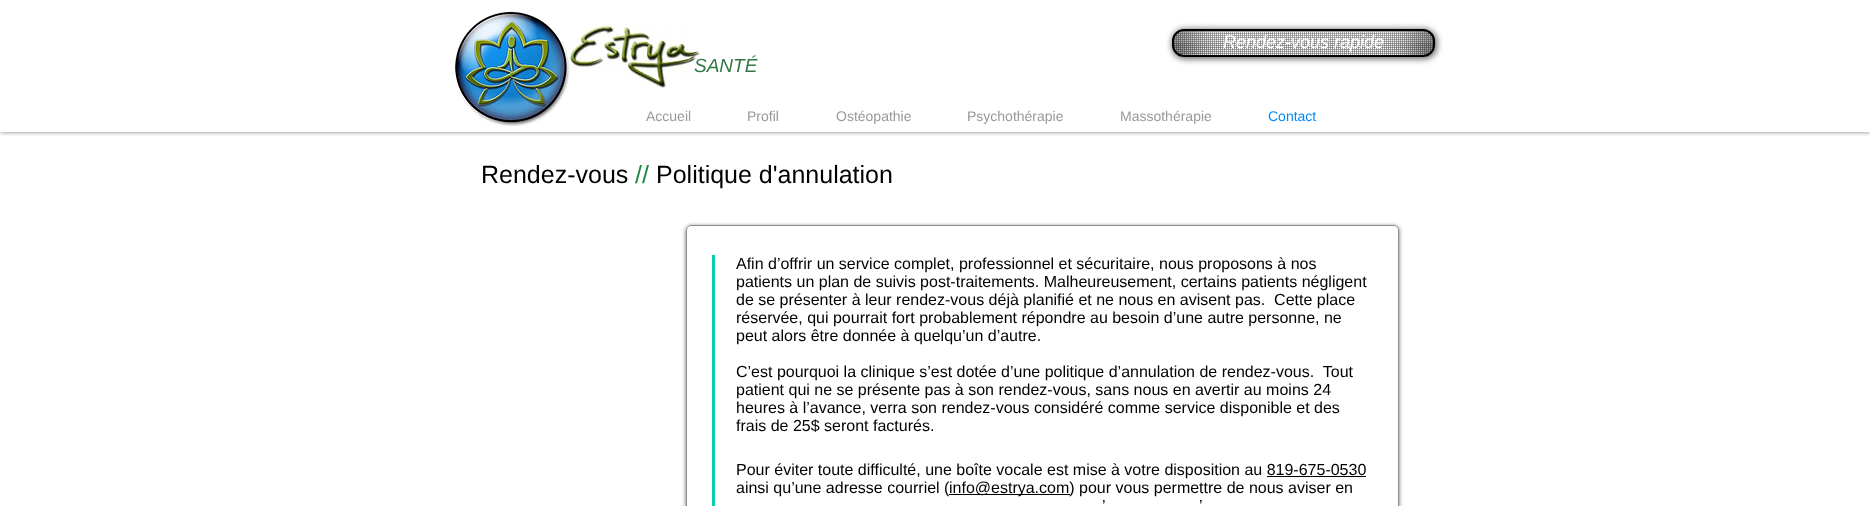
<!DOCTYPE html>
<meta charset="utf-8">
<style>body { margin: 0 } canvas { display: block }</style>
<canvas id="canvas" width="1870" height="506"></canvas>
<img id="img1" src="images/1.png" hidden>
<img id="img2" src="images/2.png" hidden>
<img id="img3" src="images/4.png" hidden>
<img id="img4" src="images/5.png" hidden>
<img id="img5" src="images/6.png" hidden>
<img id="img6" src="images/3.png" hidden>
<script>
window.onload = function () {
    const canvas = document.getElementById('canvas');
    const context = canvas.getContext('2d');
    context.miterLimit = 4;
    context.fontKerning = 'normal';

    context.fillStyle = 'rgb(255, 255, 255)';
    context.fillRect(0, 0, 1870, 506);
    context.save();
    context.beginPath();
    context.moveTo(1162, 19);
    context.lineTo(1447, 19);
    context.lineTo(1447, 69);
    context.lineTo(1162, 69);
    context.closePath();
    context.moveTo(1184, 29);
    context.lineTo(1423, 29);
    context.bezierCurveTo(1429.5, 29, 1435, 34.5, 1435, 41);
    context.lineTo(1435, 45);
    context.bezierCurveTo(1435, 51.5, 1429.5, 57, 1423, 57);
    context.lineTo(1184, 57);
    context.bezierCurveTo(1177.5, 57, 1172, 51.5, 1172, 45);
    context.lineTo(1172, 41);
    context.bezierCurveTo(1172, 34.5, 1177.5, 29, 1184, 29);
    context.closePath();
    context.clip('evenodd');
    context.fillStyle = 'rgba(0, 0, 0, 0.6)';
    context.filter = 'blur(3px)';
    context.beginPath();
    context.roundRect(1172, 29, 265, 30, 13);
    context.fill();
    context.filter = 'none';
    context.restore();
    context.save();
    context.beginPath();
    context.rect(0, 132, 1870, 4);
    context.clip();
    context.fillStyle = 'rgba(0, 0, 0, 0.5)';
    context.filter = 'blur(2.5px)';
    context.beginPath();
    context.rect(0, 0, 1870, 132);
    context.fill();
    context.filter = 'none';
    context.restore();
    context.drawImage(document.getElementById('img1'), 1172, 29, 263, 28);
    context.beginPath();
    context.roundRect(1173, 30, 261, 26, 11);
    context.strokeStyle = 'rgb(0, 0, 0)';
    context.lineWidth = 2;
    context.stroke();
    context.drawImage(document.getElementById('img2'), 1174, 31, 50, 24);
    context.drawImage(document.getElementById('img3'), 1383, 31, 50, 24);
    context.drawImage(document.getElementById('img4'), 455, 11, 115, 115);
    context.drawImage(document.getElementById('img5'), 570, 24, 130, 64);
    context.save();
    context.beginPath();
    context.moveTo(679, 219);
    context.lineTo(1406, 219);
    context.lineTo(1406, 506);
    context.lineTo(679, 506);
    context.closePath();
    context.moveTo(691, 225);
    context.lineTo(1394, 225);
    context.bezierCurveTo(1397, 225, 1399, 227, 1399, 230);
    context.lineTo(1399, 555);
    context.bezierCurveTo(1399, 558, 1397, 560, 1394, 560);
    context.lineTo(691, 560);
    context.bezierCurveTo(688, 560, 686, 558, 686, 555);
    context.lineTo(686, 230);
    context.bezierCurveTo(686, 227, 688, 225, 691, 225);
    context.closePath();
    context.clip('evenodd');
    context.fillStyle = 'rgba(0, 0, 0, 0.6)';
    context.filter = 'blur(2px)';
    context.beginPath();
    context.roundRect(686, 226, 713, 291, 5);
    context.fill();
    context.filter = 'none';
    context.restore();
    context.fillStyle = 'rgba(255, 255, 255, 0.63)';
    context.beginPath();
    context.roundRect(686, 225, 713, 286, 5);
    context.fill();
    context.beginPath();
    context.roundRect(686.5, 225.5, 712, 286, 4.5);
    context.strokeStyle = 'rgba(0, 0, 0, 0.44)';
    context.lineWidth = 1;
    context.stroke();
    context.fillStyle = 'rgb(10, 204, 174)';
    context.fillRect(712, 255, 3, 251);
    context.fillStyle = 'rgb(0, 0, 0)';
    context.fillRect(1267, 476, 99, 1);
    context.fillRect(949, 494, 121, 1);
    context.font = 'italic 18px Liberation Sans';
    context.fillStyle = 'rgb(255, 255, 255)';
    context.fillText('Rendez-vous rapide', 1223, 48);
    context.drawImage(document.getElementById('img6'), 1174, 31, 259, 12);
    context.font = 'italic 19px Liberation Sans';
    context.fillStyle = 'rgb(50, 120, 69)';
    context.fillText('SANTÉ', 694, 72);
    context.font = '14px Liberation Sans';
    context.fillStyle = 'rgb(153, 153, 153)';
    context.fillText('Accueil', 646, 121);
    context.fillText('Profil', 747, 121);
    context.fillText('Ostéopathie', 836, 121);
    context.fillText('Psychothérapie', 967, 121);
    context.fillText('Massothérapie', 1120, 121);
    context.fillStyle = 'rgb(0, 138, 252)';
    context.fillText('Contact', 1268, 121);
    context.font = '25px Liberation Sans';
    context.fillStyle = 'rgb(0, 0, 0)';
    context.fillText('Rendez-vous', 481, 183);
    context.fillStyle = 'rgb(28, 138, 67)';
    context.fillText('//', 635, 183);
    context.fillStyle = 'rgb(0, 0, 0)';
    context.fillText('Politique d\'annulation', 656, 183);
    context.font = '16px Liberation Sans';
    context.fillText('Afin d’offrir un service complet, professionnel et sécuritaire, nous proposons à nos', 736, 269);
    context.fillText('patients un plan de suivis post-traitements. Malheureusement, certains patients négligent', 736, 287);
    context.fillText('de se présenter à leur rendez-vous déjà planifié et ne nous en avisent pas.  Cette place', 736, 305);
    context.fillText('réservée, qui pourrait fort probablement répondre au besoin d’une autre personne, ne', 736, 323);
    context.fillText('peut alors être donnée à quelqu’un d’autre.', 736, 341);
    context.fillText('C’est pourquoi la clinique s’est dotée d’une politique d’annulation de rendez-vous.  Tout', 736, 377);
    context.fillText('patient qui ne se présente pas à son rendez-vous, sans nous en avertir au moins 24', 736, 395);
    context.fillText('heures à l’avance, verra son rendez-vous considéré comme service disponible et des', 736, 413);
    context.fillText('frais de 25$ seront facturés.', 736, 431);
    context.fillText('Pour éviter toute difficulté, une boîte vocale est mise à votre disposition au 819-675-0530', 736, 475);
    context.fillText('ainsi qu’une adresse courriel (', 736, 493);
    context.fillText('info@estrya.com) pour vous permettre de nous aviser en', 949, 493);
    context.fillText('’', 1102, 511);
    context.fillText('’', 1199, 511);
};
</script>
